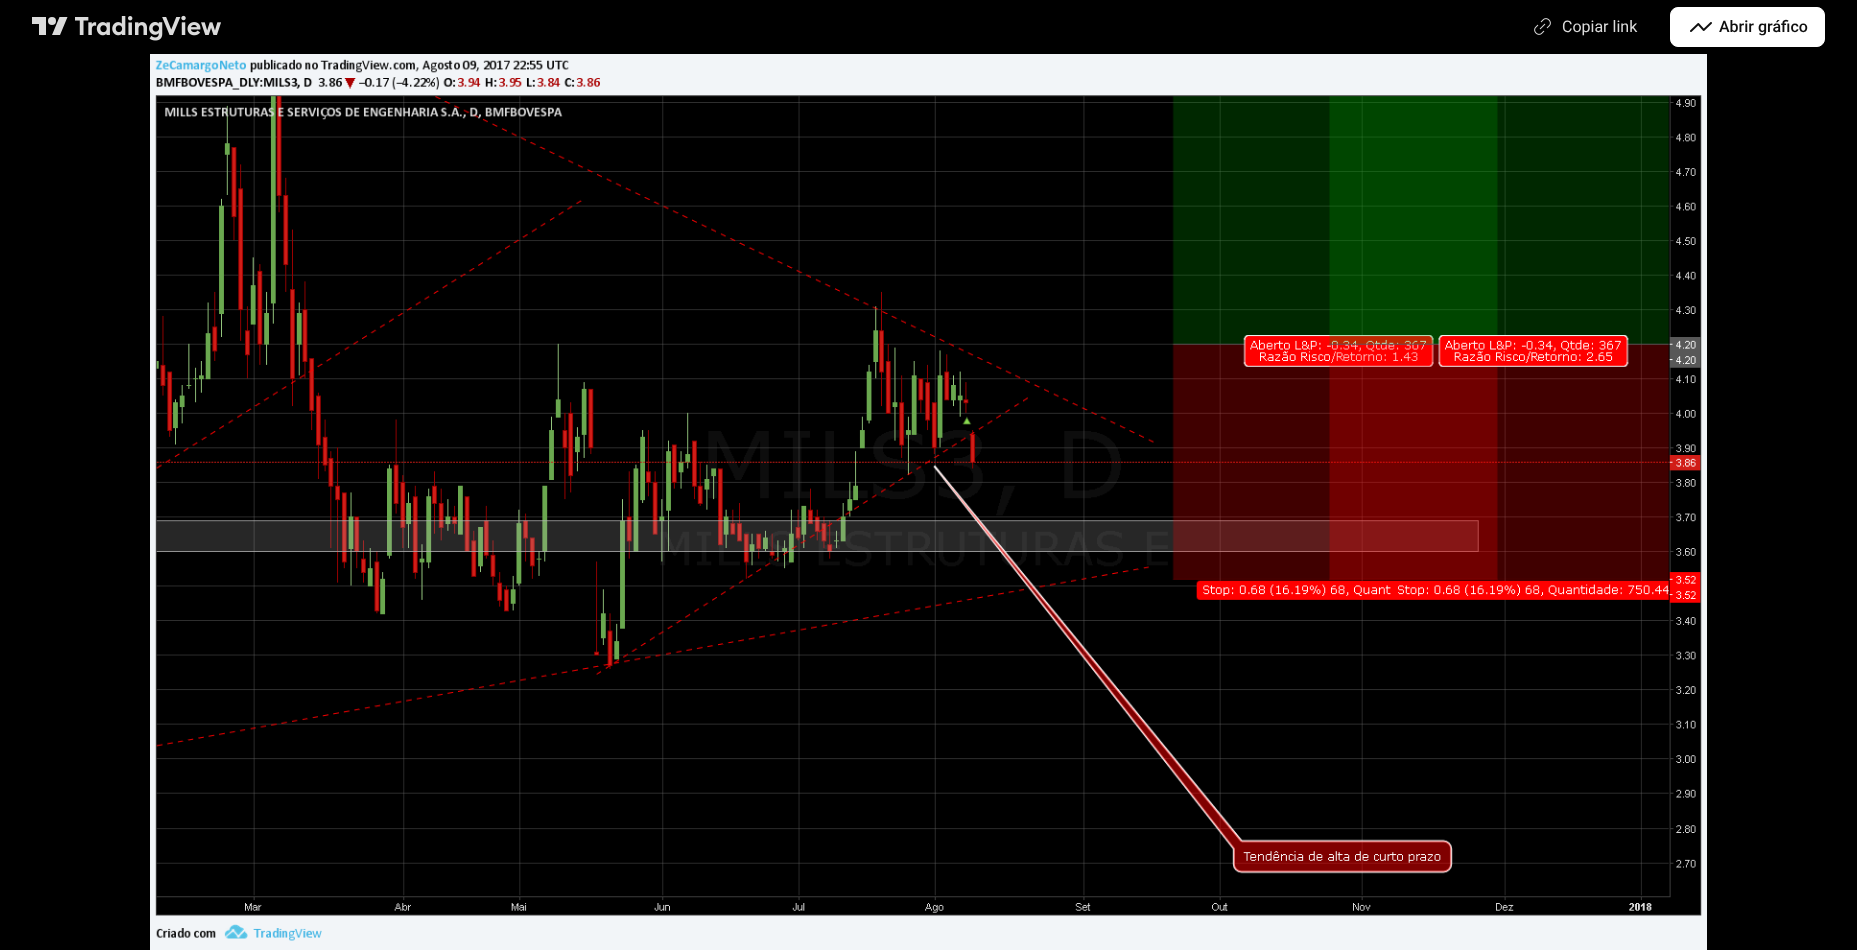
<!DOCTYPE html>
<meta charset="utf-8">
<style>body { margin: 0 } canvas { display: block }</style>
<canvas id="canvas" width="1857" height="950"></canvas>
<img id="img1" src="images/1.png" hidden>
<img id="img2" src="images/2.png" hidden>
<img id="img3" src="images/3.png" hidden>
<img id="img4" src="images/4.png" hidden>
<script>
window.onload = function () {
    const canvas = document.getElementById('canvas');
    const context = canvas.getContext('2d');
    context.miterLimit = 4;
    context.fontKerning = 'normal';

    context.fillStyle = 'rgb(0, 0, 0)';
    context.fillRect(0, 0, 1857, 950);
    context.fillStyle = 'rgb(219, 219, 219)';
    context.beginPath();
    context.moveTo(46, 35);
    context.lineTo(39, 35);
    context.lineTo(39, 24);
    context.lineTo(32, 24);
    context.lineTo(32, 17);
    context.lineTo(46, 17);
    context.closePath();
    context.moveTo(60, 35);
    context.lineTo(52, 35);
    context.lineTo(59.5, 17);
    context.lineTo(67.5, 17);
    context.closePath();
    context.fill();
    context.beginPath();
    context.arc(52, 21, 4, 0, 2 * Math.PI);
    context.fill();
    context.drawImage(document.getElementById('img1'), 75, 15, 146, 26);
    context.drawImage(document.getElementById('img2'), 1534, 18, 17, 17);
    context.fillStyle = 'rgb(255, 255, 255)';
    context.beginPath();
    context.roundRect(1670.5, 7.5, 154, 39, 7.5);
    context.fill();
    context.strokeStyle = 'rgb(255, 255, 255)';
    context.stroke();
    context.drawImage(document.getElementById('img3'), 1690, 22, 22, 10);
    context.drawImage(document.getElementById('img4'), 150, 54, 1557, 896);
    context.font = '16px Roboto';
    context.fillStyle = 'rgb(219, 219, 219)';
    context.fillText('Copiar link', 1562, 32);
    context.font = '500 16px Roboto';
    context.fillStyle = 'rgb(15, 15, 15)';
    context.fillText('Abrir gráfico', 1719, 32);
};
</script>
